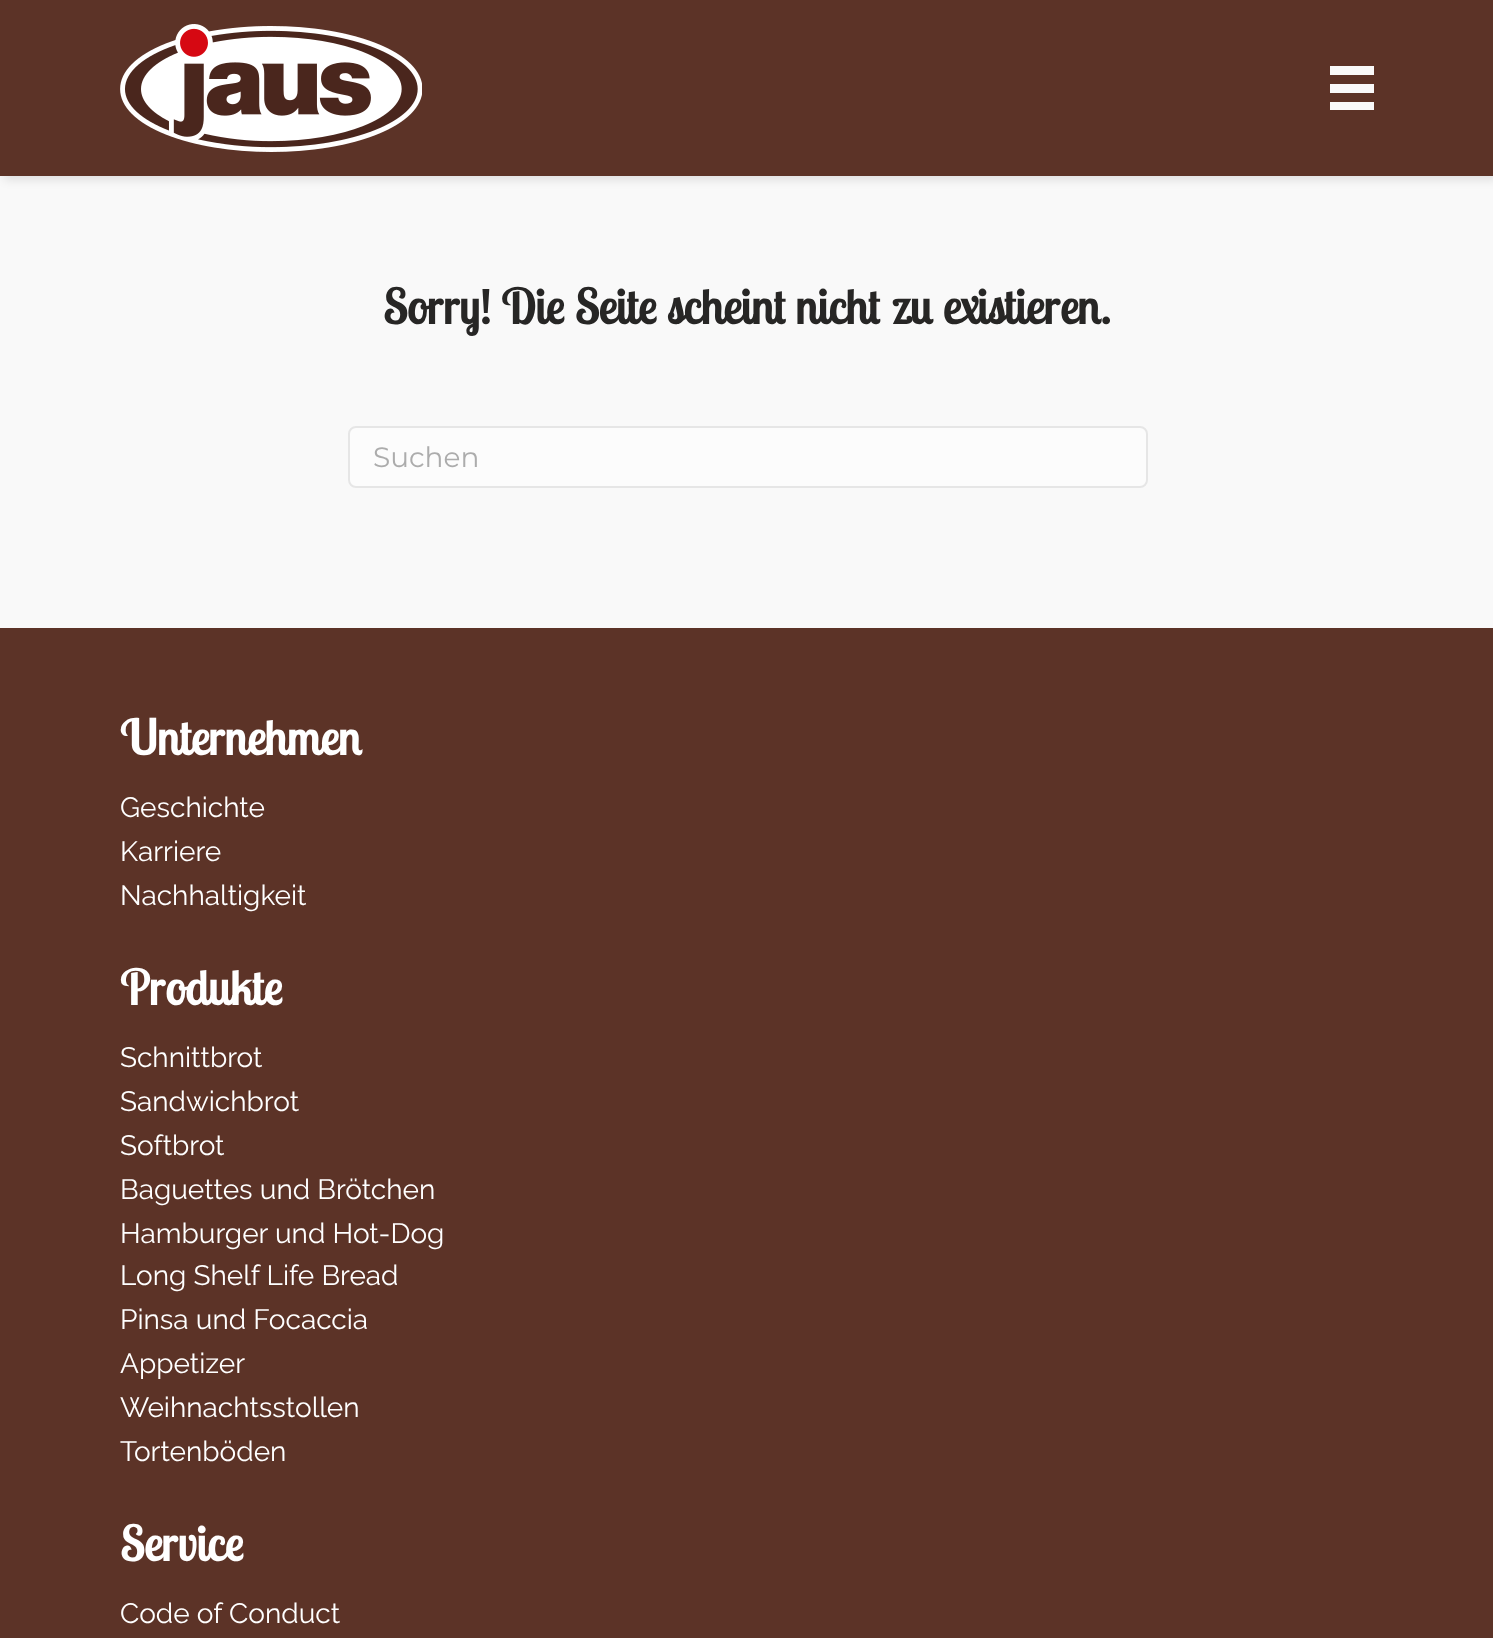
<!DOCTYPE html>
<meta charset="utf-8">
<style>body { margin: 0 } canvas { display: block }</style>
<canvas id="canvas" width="1493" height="1638"></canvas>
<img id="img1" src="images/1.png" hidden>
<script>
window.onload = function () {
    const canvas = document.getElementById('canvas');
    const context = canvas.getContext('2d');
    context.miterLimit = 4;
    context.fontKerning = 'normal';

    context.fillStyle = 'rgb(249, 249, 249)';
    context.fillRect(0, 0, 1493, 1638);
    context.fillStyle = 'rgba(0, 0, 0, 0.1)';
    context.filter = 'blur(5px)';
    context.beginPath();
    context.rect(4, 4, 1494, 176);
    context.fill();
    context.filter = 'none';
    context.fillStyle = 'rgb(92, 51, 39)';
    context.fillRect(0, 0, 1493, 176);
    context.drawImage(document.getElementById('img1'), 120, 24, 302, 128);
    context.fillStyle = 'rgb(249, 249, 249)';
    context.fillRect(1330, 66, 44, 9);
    context.fillRect(1330, 84, 44, 9);
    context.fillRect(1330, 102, 44, 8);
    context.fillStyle = 'rgb(252, 252, 252)';
    context.beginPath();
    context.roundRect(349, 427, 798, 60, 7);
    context.fill();
    context.strokeStyle = 'rgb(230, 230, 230)';
    context.lineWidth = 2;
    context.stroke();
    context.fillStyle = 'rgb(92, 51, 39)';
    context.fillRect(0, 628, 1493, 1010);
    context.font = 'bold 48px Lobster Two';
    context.fillStyle = 'rgb(39, 38, 37)';
    context.fillText('Sorry! Die Seite scheint nicht zu existieren.', 383, 324);
    context.font = '28px Montserrat';
    context.fillStyle = 'rgb(172, 172, 172)';
    context.fillText('Suchen', 373, 467);
    context.font = 'bold 48px Lobster Two';
    context.fillStyle = 'rgb(255, 255, 255)';
    context.fillText('Unternehmen', 120, 755);
    context.font = '28px Raleway';
    context.fillText('Geschichte', 120, 817);
    context.fillText('Karriere', 120, 861);
    context.fillText('Nachhaltigkeit', 120, 905);
    context.font = 'bold 48px Lobster Two';
    context.fillText('Produkte', 120, 1005);
    context.font = '28px Raleway';
    context.fillText('Schnittbrot', 120, 1067);
    context.fillText('Sandwichbrot', 120, 1111);
    context.fillText('Softbrot', 120, 1155);
    context.fillText('Baguettes und Brötchen', 120, 1199);
    context.fillText('Hamburger und Hot-Dog', 120, 1243);
    context.fillText('Long Shelf Life Bread', 120, 1285);
    context.fillText('Pinsa und Focaccia', 120, 1329);
    context.fillText('Appetizer', 120, 1373);
    context.fillText('Weihnachtsstollen', 120, 1417);
    context.fillText('Tortenböden', 120, 1461);
    context.font = 'bold 48px Lobster Two';
    context.fillText('Service', 120, 1561);
    context.font = '28px Raleway';
    context.fillText('Code of Conduct', 120, 1623);
};
</script>
